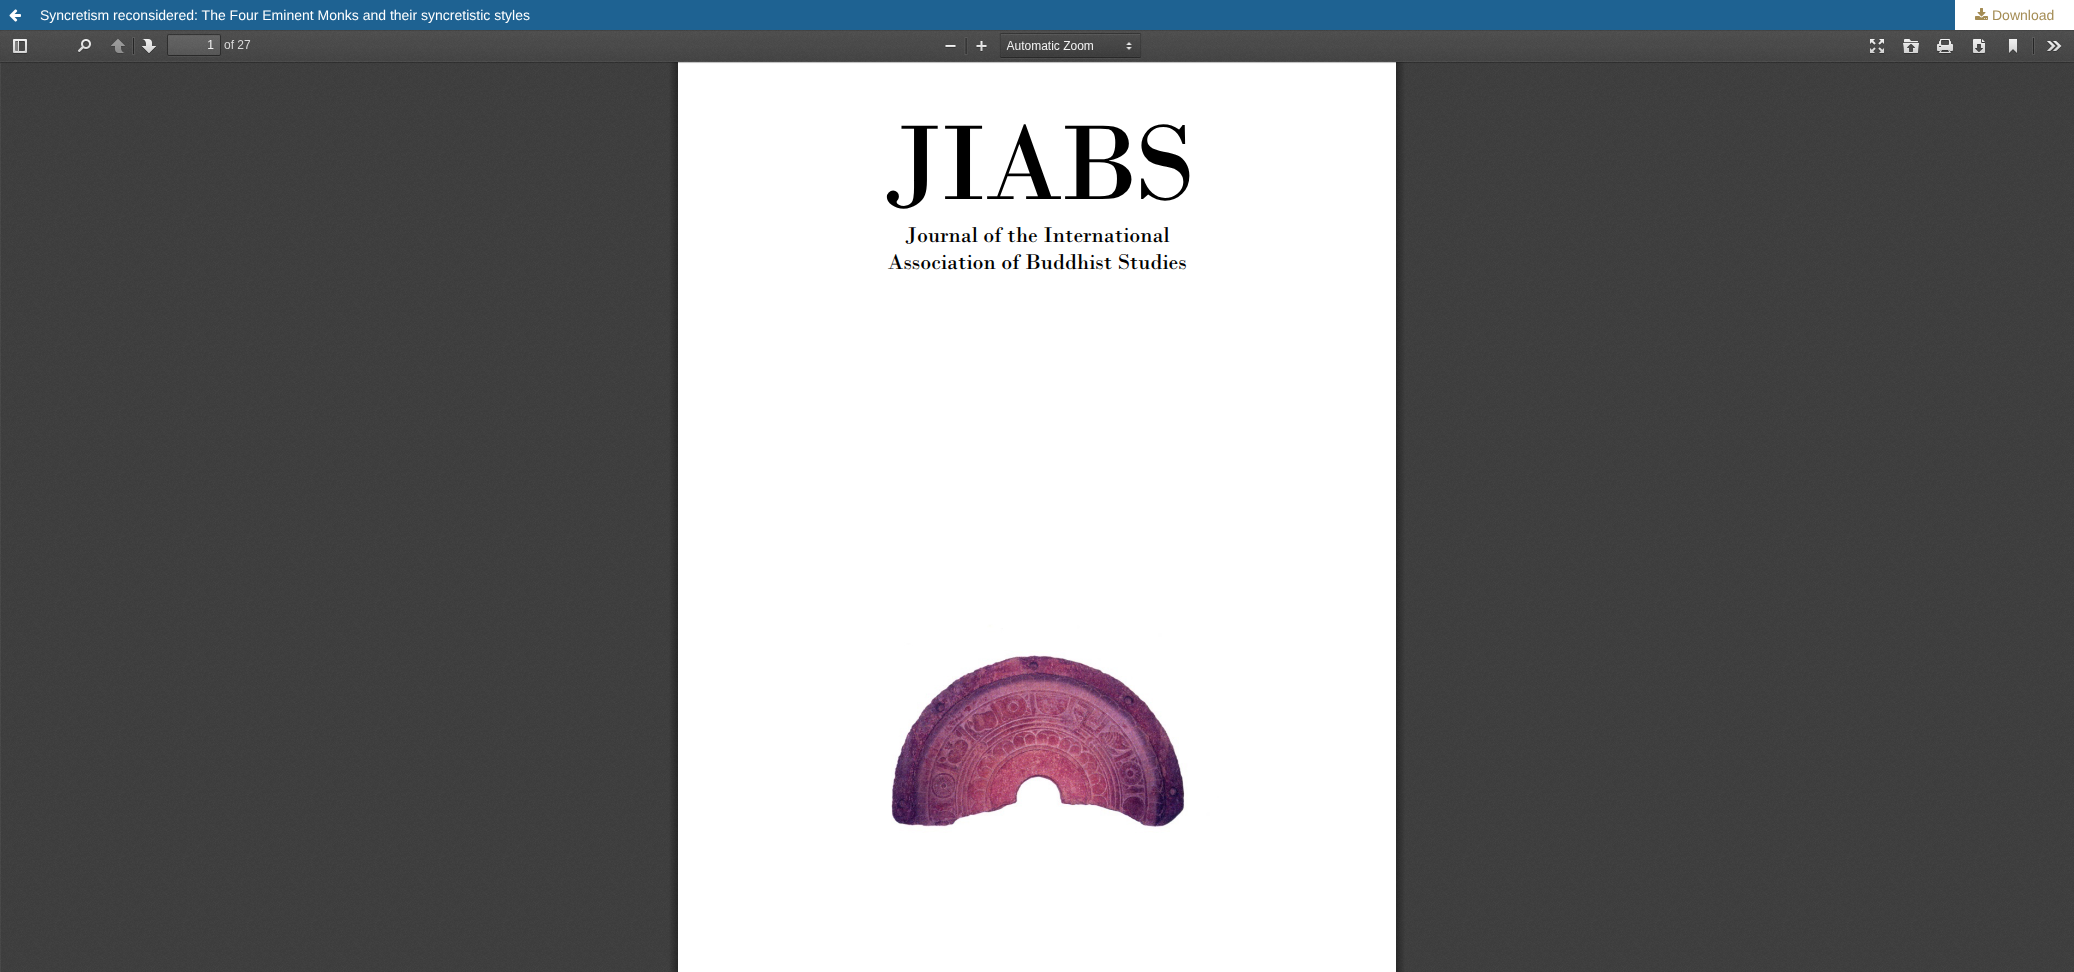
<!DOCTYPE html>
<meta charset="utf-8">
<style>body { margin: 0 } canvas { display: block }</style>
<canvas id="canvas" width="2074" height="972"></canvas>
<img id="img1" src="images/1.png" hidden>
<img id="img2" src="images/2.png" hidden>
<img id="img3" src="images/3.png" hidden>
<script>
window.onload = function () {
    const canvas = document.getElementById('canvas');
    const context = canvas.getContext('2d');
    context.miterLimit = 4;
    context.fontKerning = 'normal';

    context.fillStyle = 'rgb(255, 255, 255)';
    context.fillRect(0, 0, 2074, 972);
    context.fillStyle = 'rgb(30, 98, 146)';
    context.fillRect(0, 0, 1955, 30);
    context.drawImage(document.getElementById('img1'), 9, 9, 12, 13);
    context.drawImage(document.getElementById('img2'), 1975, 8, 13, 12);
    context.drawImage(document.getElementById('img3'), 0, 30, 2074, 942);
    context.font = '14px Liberation Sans';
    context.fillStyle = 'rgb(255, 255, 255)';
    context.fillText('Syncretism reconsidered: The Four Eminent Monks and their syncretistic styles', 40, 20);
    context.fillStyle = 'rgb(164, 140, 84)';
    context.fillText('Download', 1992, 20);
};
</script>
